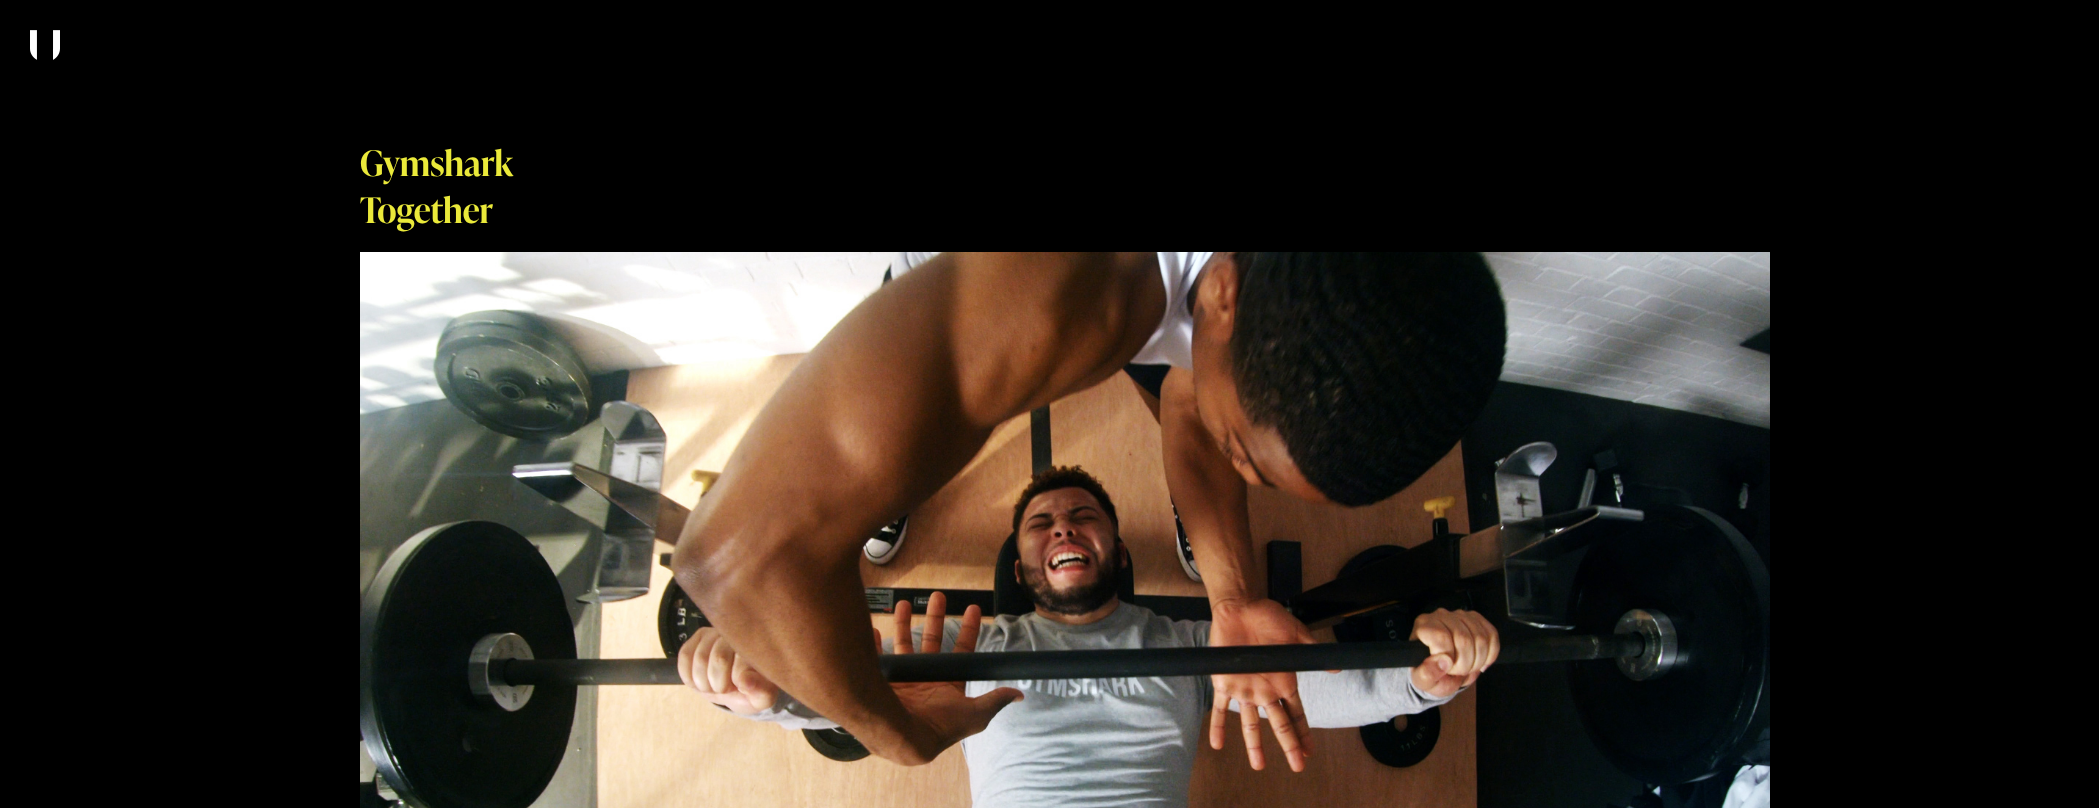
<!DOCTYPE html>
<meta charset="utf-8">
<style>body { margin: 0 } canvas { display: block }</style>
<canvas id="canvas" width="2099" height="808"></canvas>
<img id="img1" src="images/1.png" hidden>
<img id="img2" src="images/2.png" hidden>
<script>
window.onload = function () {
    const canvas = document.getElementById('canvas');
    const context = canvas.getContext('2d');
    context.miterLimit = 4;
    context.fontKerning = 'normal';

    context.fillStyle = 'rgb(0, 0, 0)';
    context.fillRect(0, 0, 2099, 808);
    context.drawImage(document.getElementById('img1'), 30, 30, 30, 30);
    context.drawImage(document.getElementById('img2'), 360, 252, 1410, 556);
    context.font = '600 35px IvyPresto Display';
    context.fillStyle = 'rgb(234, 233, 58)';
    context.fillText('Gymshark', 360, 176);
    context.fillText('Together', 360, 223);
};
</script>
